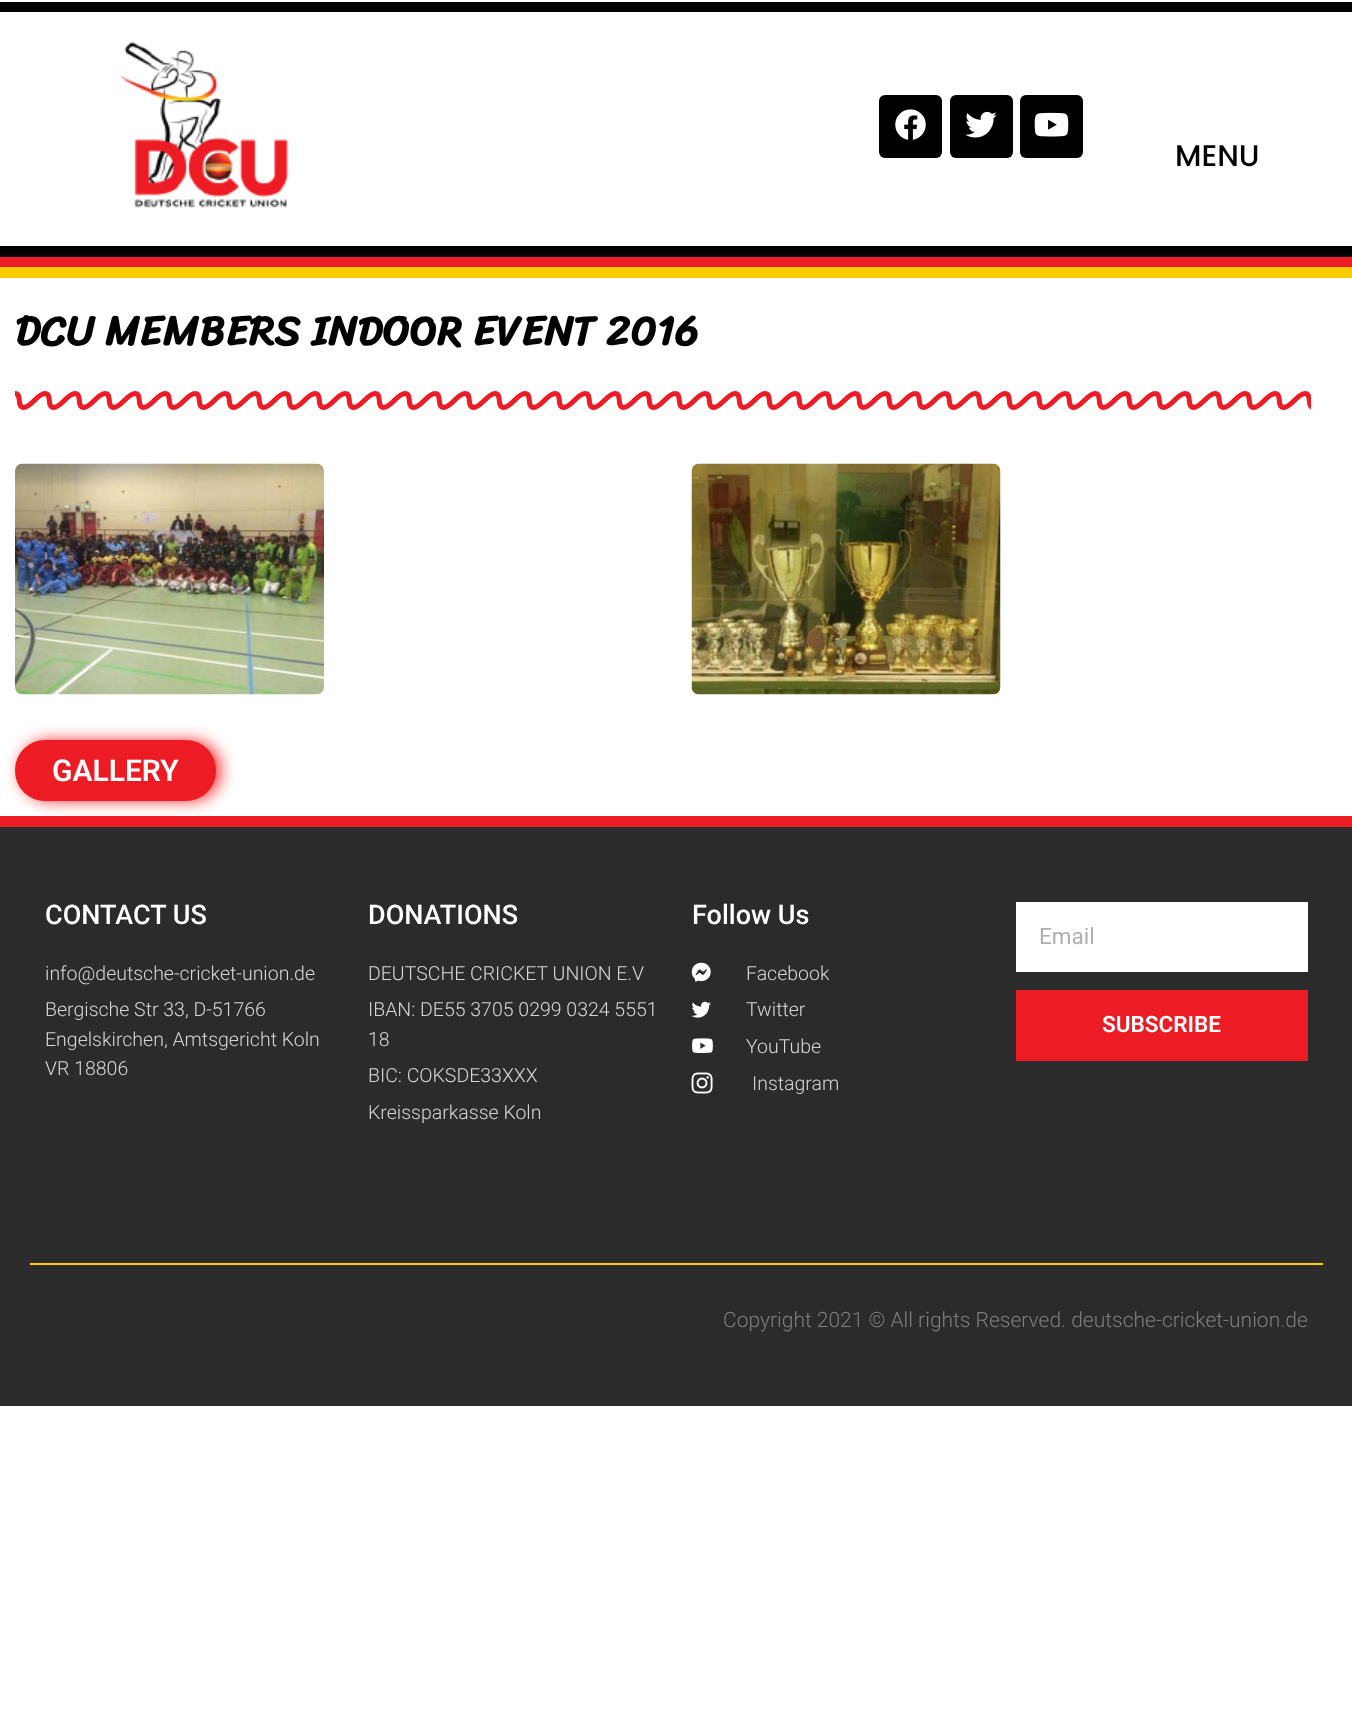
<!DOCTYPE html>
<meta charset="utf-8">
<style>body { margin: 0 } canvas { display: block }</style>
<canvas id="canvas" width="1352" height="1723"></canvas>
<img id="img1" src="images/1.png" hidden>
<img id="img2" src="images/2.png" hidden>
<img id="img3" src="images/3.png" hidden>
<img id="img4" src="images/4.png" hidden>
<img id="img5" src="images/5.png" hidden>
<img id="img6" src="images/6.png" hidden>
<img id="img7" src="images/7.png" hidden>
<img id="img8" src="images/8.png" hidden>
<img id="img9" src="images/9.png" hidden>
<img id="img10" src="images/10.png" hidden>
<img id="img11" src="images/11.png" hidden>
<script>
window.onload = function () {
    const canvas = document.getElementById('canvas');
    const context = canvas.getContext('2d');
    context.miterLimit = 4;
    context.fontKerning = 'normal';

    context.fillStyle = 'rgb(255, 255, 255)';
    context.fillRect(0, 0, 1352, 1723);
    context.fillStyle = 'rgb(0, 0, 0)';
    context.fillRect(0, 2, 1352, 10);
    context.drawImage(document.getElementById('img1'), 118, 41, 171, 167);
    context.beginPath();
    context.roundRect(879, 95, 63, 63, 6);
    context.fill();
    context.drawImage(document.getElementById('img2'), 895, 109, 31, 31);
    context.beginPath();
    context.roundRect(950, 95, 63, 63, 6);
    context.fill();
    context.drawImage(document.getElementById('img3'), 965, 111, 32, 27);
    context.beginPath();
    context.roundRect(1020, 95, 63, 63, 6);
    context.fill();
    context.drawImage(document.getElementById('img4'), 1034, 112, 35, 25);
    context.fillRect(0, 246, 1352, 11);
    context.fillStyle = 'rgb(237, 27, 36)';
    context.fillRect(0, 257, 1352, 10);
    context.fillStyle = 'rgb(255, 206, 0)';
    context.fillRect(0, 267, 1352, 11);
    context.drawImage(document.getElementById('img5'), 15, 391, 1296, 19);
    context.drawImage(document.getElementById('img6'), 15, 463, 309, 232);
    context.drawImage(document.getElementById('img7'), 691, 463, 310, 232);
    context.fillStyle = 'rgba(255, 15, 15, 0.84)';
    context.filter = 'blur(7.5px)';
    context.beginPath();
    context.roundRect(20, 740, 201, 61, 30);
    context.fill();
    context.filter = 'none';
    context.fillStyle = 'rgb(237, 27, 36)';
    context.beginPath();
    context.roundRect(15, 740, 201, 61, 30);
    context.fill();
    context.fillStyle = 'rgb(43, 43, 43)';
    context.fillRect(0, 827, 1352, 579);
    context.fillStyle = 'rgb(237, 27, 36)';
    context.fillRect(0, 816, 1352, 11);
    context.drawImage(document.getElementById('img8'), 691, 962, 20, 20);
    context.drawImage(document.getElementById('img9'), 691, 1001, 20, 17);
    context.drawImage(document.getElementById('img10'), 692, 1038, 21, 15);
    context.drawImage(document.getElementById('img11'), 691, 1072, 22, 22);
    context.fillStyle = 'rgb(255, 255, 255)';
    context.fillRect(1016, 902, 292, 70);
    context.fillStyle = 'rgb(237, 27, 36)';
    context.fillRect(1016, 990, 292, 71);
    context.fillStyle = 'rgb(255, 206, 0)';
    context.fillRect(30, 1263, 1293, 2);
    context.font = '500 30px Poppins';
    context.fillStyle = 'rgb(0, 0, 0)';
    context.fillText('MENU', 1175, 166);
    context.font = 'bold 42px Sriracha';
    context.fillText('DCU MEMBERS INDOOR EVENT 2016', 15, 345);
    context.font = '600 30px Roboto';
    context.fillStyle = 'rgb(255, 255, 255)';
    context.fillText('GALLERY', 52, 781);
    context.font = '500 27px Roboto';
    context.fillText('CONTACT US', 45, 924);
    context.font = '300 19.5px Roboto';
    context.fillStyle = 'rgb(215, 215, 215)';
    context.fillText('info@deutsche-cricket-union.de', 45, 980);
    context.fillText('Bergische Str 33, D-51766', 45, 1016);
    context.fillText('Engelskirchen, Amtsgericht Koln', 45, 1046);
    context.fillText('VR 18806', 45, 1075);
    context.font = '500 27px Roboto';
    context.fillStyle = 'rgb(255, 255, 255)';
    context.fillText('DONATIONS', 368, 924);
    context.font = '300 19.5px Roboto';
    context.fillStyle = 'rgb(215, 215, 215)';
    context.fillText('DEUTSCHE CRICKET UNION E.V', 368, 980);
    context.fillText('IBAN: DE55 3705 0299 0324 5551', 368, 1016);
    context.fillText('18', 368, 1046);
    context.fillText('BIC: COKSDE33XXX', 368, 1082);
    context.fillText('Kreissparkasse Koln', 368, 1119);
    context.font = '500 27px Roboto';
    context.fillStyle = 'rgb(255, 255, 255)';
    context.fillText('Follow Us', 692, 924);
    context.font = '300 19.5px Roboto';
    context.fillStyle = 'rgb(215, 215, 215)';
    context.fillText('Facebook', 746, 980);
    context.fillText('Twitter', 746, 1016);
    context.fillText('YouTube', 746, 1053);
    context.fillText('Instagram', 752, 1090);
    context.font = '22.5px Roboto';
    context.fillStyle = 'rgb(175, 175, 175)';
    context.fillText('Email', 1039, 944);
    context.font = '600 22.5px Roboto';
    context.fillStyle = 'rgb(255, 255, 255)';
    context.fillText('SUBSCRIBE', 1102, 1032);
    context.font = '300 21px Roboto';
    context.fillStyle = 'rgb(126, 126, 126)';
    context.fillText('Copyright 2021 © All rights Reserved. deutsche-cricket-union.de', 723, 1327);
};
</script>
